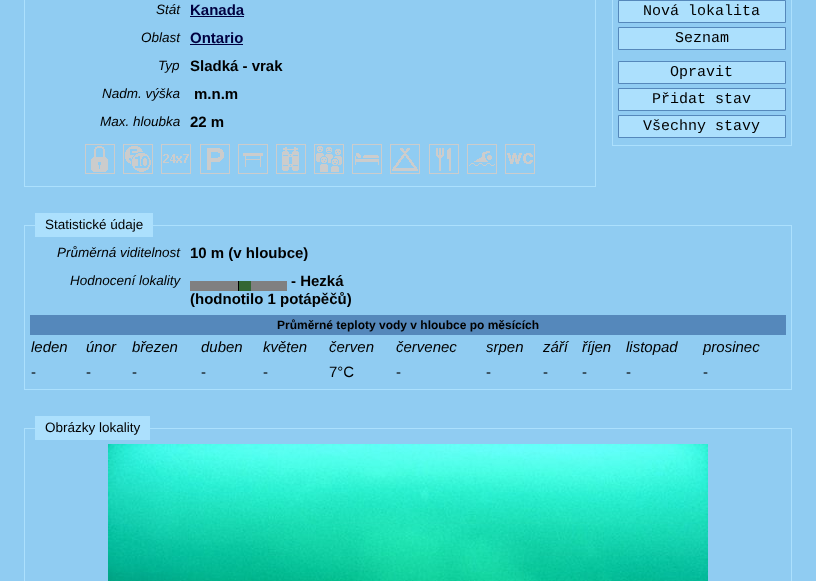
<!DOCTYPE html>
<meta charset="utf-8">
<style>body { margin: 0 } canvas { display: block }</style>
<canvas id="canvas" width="816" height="581"></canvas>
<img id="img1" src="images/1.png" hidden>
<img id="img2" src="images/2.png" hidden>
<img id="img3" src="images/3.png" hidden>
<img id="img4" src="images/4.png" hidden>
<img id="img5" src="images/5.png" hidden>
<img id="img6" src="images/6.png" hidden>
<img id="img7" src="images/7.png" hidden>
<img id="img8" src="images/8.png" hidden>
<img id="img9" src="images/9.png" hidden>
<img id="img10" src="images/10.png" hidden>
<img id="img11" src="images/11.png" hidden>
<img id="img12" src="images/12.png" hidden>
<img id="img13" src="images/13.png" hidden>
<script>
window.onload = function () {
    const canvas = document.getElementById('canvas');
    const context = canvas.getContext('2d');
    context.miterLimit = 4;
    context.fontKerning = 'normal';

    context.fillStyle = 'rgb(144, 204, 242)';
    context.fillRect(0, 0, 816, 581);
    context.strokeStyle = 'rgb(172, 224, 253)';
    context.strokeRect(24.5, -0.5, 571, 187);
    context.fillStyle = 'rgb(0, 0, 64)';
    context.fillRect(190, 16, 54, 1);
    context.fillRect(190, 44, 53, 1);
    context.drawImage(document.getElementById('img1'), 85, 144, 30, 30);
    context.drawImage(document.getElementById('img2'), 123, 144, 30, 30);
    context.drawImage(document.getElementById('img3'), 161, 144, 30, 30);
    context.drawImage(document.getElementById('img4'), 200, 144, 30, 30);
    context.drawImage(document.getElementById('img5'), 238, 144, 30, 30);
    context.drawImage(document.getElementById('img6'), 276, 144, 30, 30);
    context.drawImage(document.getElementById('img7'), 314, 144, 30, 30);
    context.drawImage(document.getElementById('img8'), 352, 144, 30, 30);
    context.drawImage(document.getElementById('img9'), 390, 144, 30, 30);
    context.drawImage(document.getElementById('img10'), 429, 144, 30, 30);
    context.drawImage(document.getElementById('img11'), 467, 144, 30, 30);
    context.drawImage(document.getElementById('img12'), 505, 144, 30, 30);
    context.strokeRect(612.5, -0.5, 179, 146);
    context.fillStyle = 'rgb(172, 224, 253)';
    context.beginPath();
    context.rect(618.5, 0.5, 167, 22);
    context.fill();
    context.strokeStyle = 'rgb(85, 136, 187)';
    context.stroke();
    context.beginPath();
    context.rect(618.5, 27.5, 167, 22);
    context.fill();
    context.stroke();
    context.beginPath();
    context.rect(618.5, 61.5, 167, 22);
    context.fill();
    context.stroke();
    context.beginPath();
    context.rect(618.5, 88.5, 167, 22);
    context.fill();
    context.stroke();
    context.beginPath();
    context.rect(618.5, 115.5, 167, 22);
    context.fill();
    context.stroke();
    context.strokeStyle = 'rgb(172, 224, 253)';
    context.strokeRect(24.5, 225.5, 767, 164);
    context.fillRect(35, 213, 118, 24);
    context.fillStyle = 'rgb(128, 128, 128)';
    context.fillRect(190, 281, 48, 10);
    context.fillStyle = 'rgb(0, 0, 0)';
    context.fillRect(238, 281, 1, 10);
    context.fillStyle = 'rgb(51, 102, 51)';
    context.fillRect(239, 281, 12, 10);
    context.fillStyle = 'rgb(128, 128, 128)';
    context.fillRect(251, 281, 36, 10);
    context.fillStyle = 'rgb(85, 136, 187)';
    context.fillRect(30, 315, 756, 20);
    context.strokeRect(24.5, 428.5, 767, 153);
    context.fillStyle = 'rgb(172, 224, 253)';
    context.fillRect(35, 416, 115, 24);
    context.drawImage(document.getElementById('img13'), 108, 444, 600, 137);
    context.font = 'italic 13.5px Liberation Sans';
    context.fillStyle = 'rgb(0, 0, 0)';
    context.fillText('Stát', 156, 14);
    context.font = 'bold 15px Liberation Sans';
    context.fillStyle = 'rgb(0, 0, 64)';
    context.fillText('Kanada', 190, 15);
    context.font = 'italic 13.5px Liberation Sans';
    context.fillStyle = 'rgb(0, 0, 0)';
    context.fillText('Oblast', 141, 42);
    context.font = 'bold 15px Liberation Sans';
    context.fillStyle = 'rgb(0, 0, 64)';
    context.fillText('Ontario', 190, 43);
    context.font = 'italic 13.5px Liberation Sans';
    context.fillStyle = 'rgb(0, 0, 0)';
    context.fillText('Typ', 158, 70);
    context.font = 'bold 15px Liberation Sans';
    context.fillText('Sladká - vrak', 190, 71);
    context.font = 'italic 13.5px Liberation Sans';
    context.fillText('Nadm. výška', 102, 98);
    context.font = 'bold 15px Liberation Sans';
    context.fillText('m.n.m', 194, 99);
    context.font = 'italic 13.5px Liberation Sans';
    context.fillText('Max. hloubka', 100, 126);
    context.font = 'bold 15px Liberation Sans';
    context.fillText('22 m', 190, 127);
    context.font = '15px Liberation Mono';
    context.fillText('Nová lokalita', 643, 15);
    context.fillText('Seznam', 675, 42);
    context.fillText('Opravit', 670, 76);
    context.fillText('Přidat stav', 652, 103);
    context.fillText('Všechny stavy', 643, 130);
    context.font = '13.5px Liberation Sans';
    context.fillText('Statistické údaje', 45, 229);
    context.font = 'italic 13.5px Liberation Sans';
    context.fillText('Průměrná viditelnost', 57, 257);
    context.font = 'bold 15px Liberation Sans';
    context.fillText('10 m (v hloubce)', 190, 258);
    context.font = 'italic 13.5px Liberation Sans';
    context.fillText('Hodnocení lokality', 70, 285);
    context.font = 'bold 15px Liberation Sans';
    context.fillText('- Hezká', 291, 286);
    context.fillText('(hodnotilo 1 potápěčů)', 190, 304);
    context.font = 'bold 12px Liberation Sans';
    context.fillText('Průměrné teploty vody v hloubce po měsících', 277, 329);
    context.font = 'italic 15px Liberation Sans';
    context.fillText('leden', 31, 352);
    context.fillText('únor', 86, 352);
    context.fillText('březen', 132, 352);
    context.fillText('duben', 201, 352);
    context.fillText('květen', 263, 352);
    context.fillText('červen', 329, 352);
    context.fillText('červenec', 396, 352);
    context.fillText('srpen', 486, 352);
    context.fillText('září', 543, 352);
    context.fillText('říjen', 582, 352);
    context.fillText('listopad', 626, 352);
    context.fillText('prosinec', 703, 352);
    context.font = '15px Liberation Sans';
    context.fillText('-', 31, 377);
    context.fillText('-', 86, 377);
    context.fillText('-', 132, 377);
    context.fillText('-', 201, 377);
    context.fillText('-', 263, 377);
    context.fillText('7°C', 329, 377);
    context.fillText('-', 396, 377);
    context.fillText('-', 486, 377);
    context.fillText('-', 543, 377);
    context.fillText('-', 582, 377);
    context.fillText('-', 626, 377);
    context.fillText('-', 703, 377);
    context.font = '13.5px Liberation Sans';
    context.fillText('Obrázky lokality', 45, 432);
};
</script>
